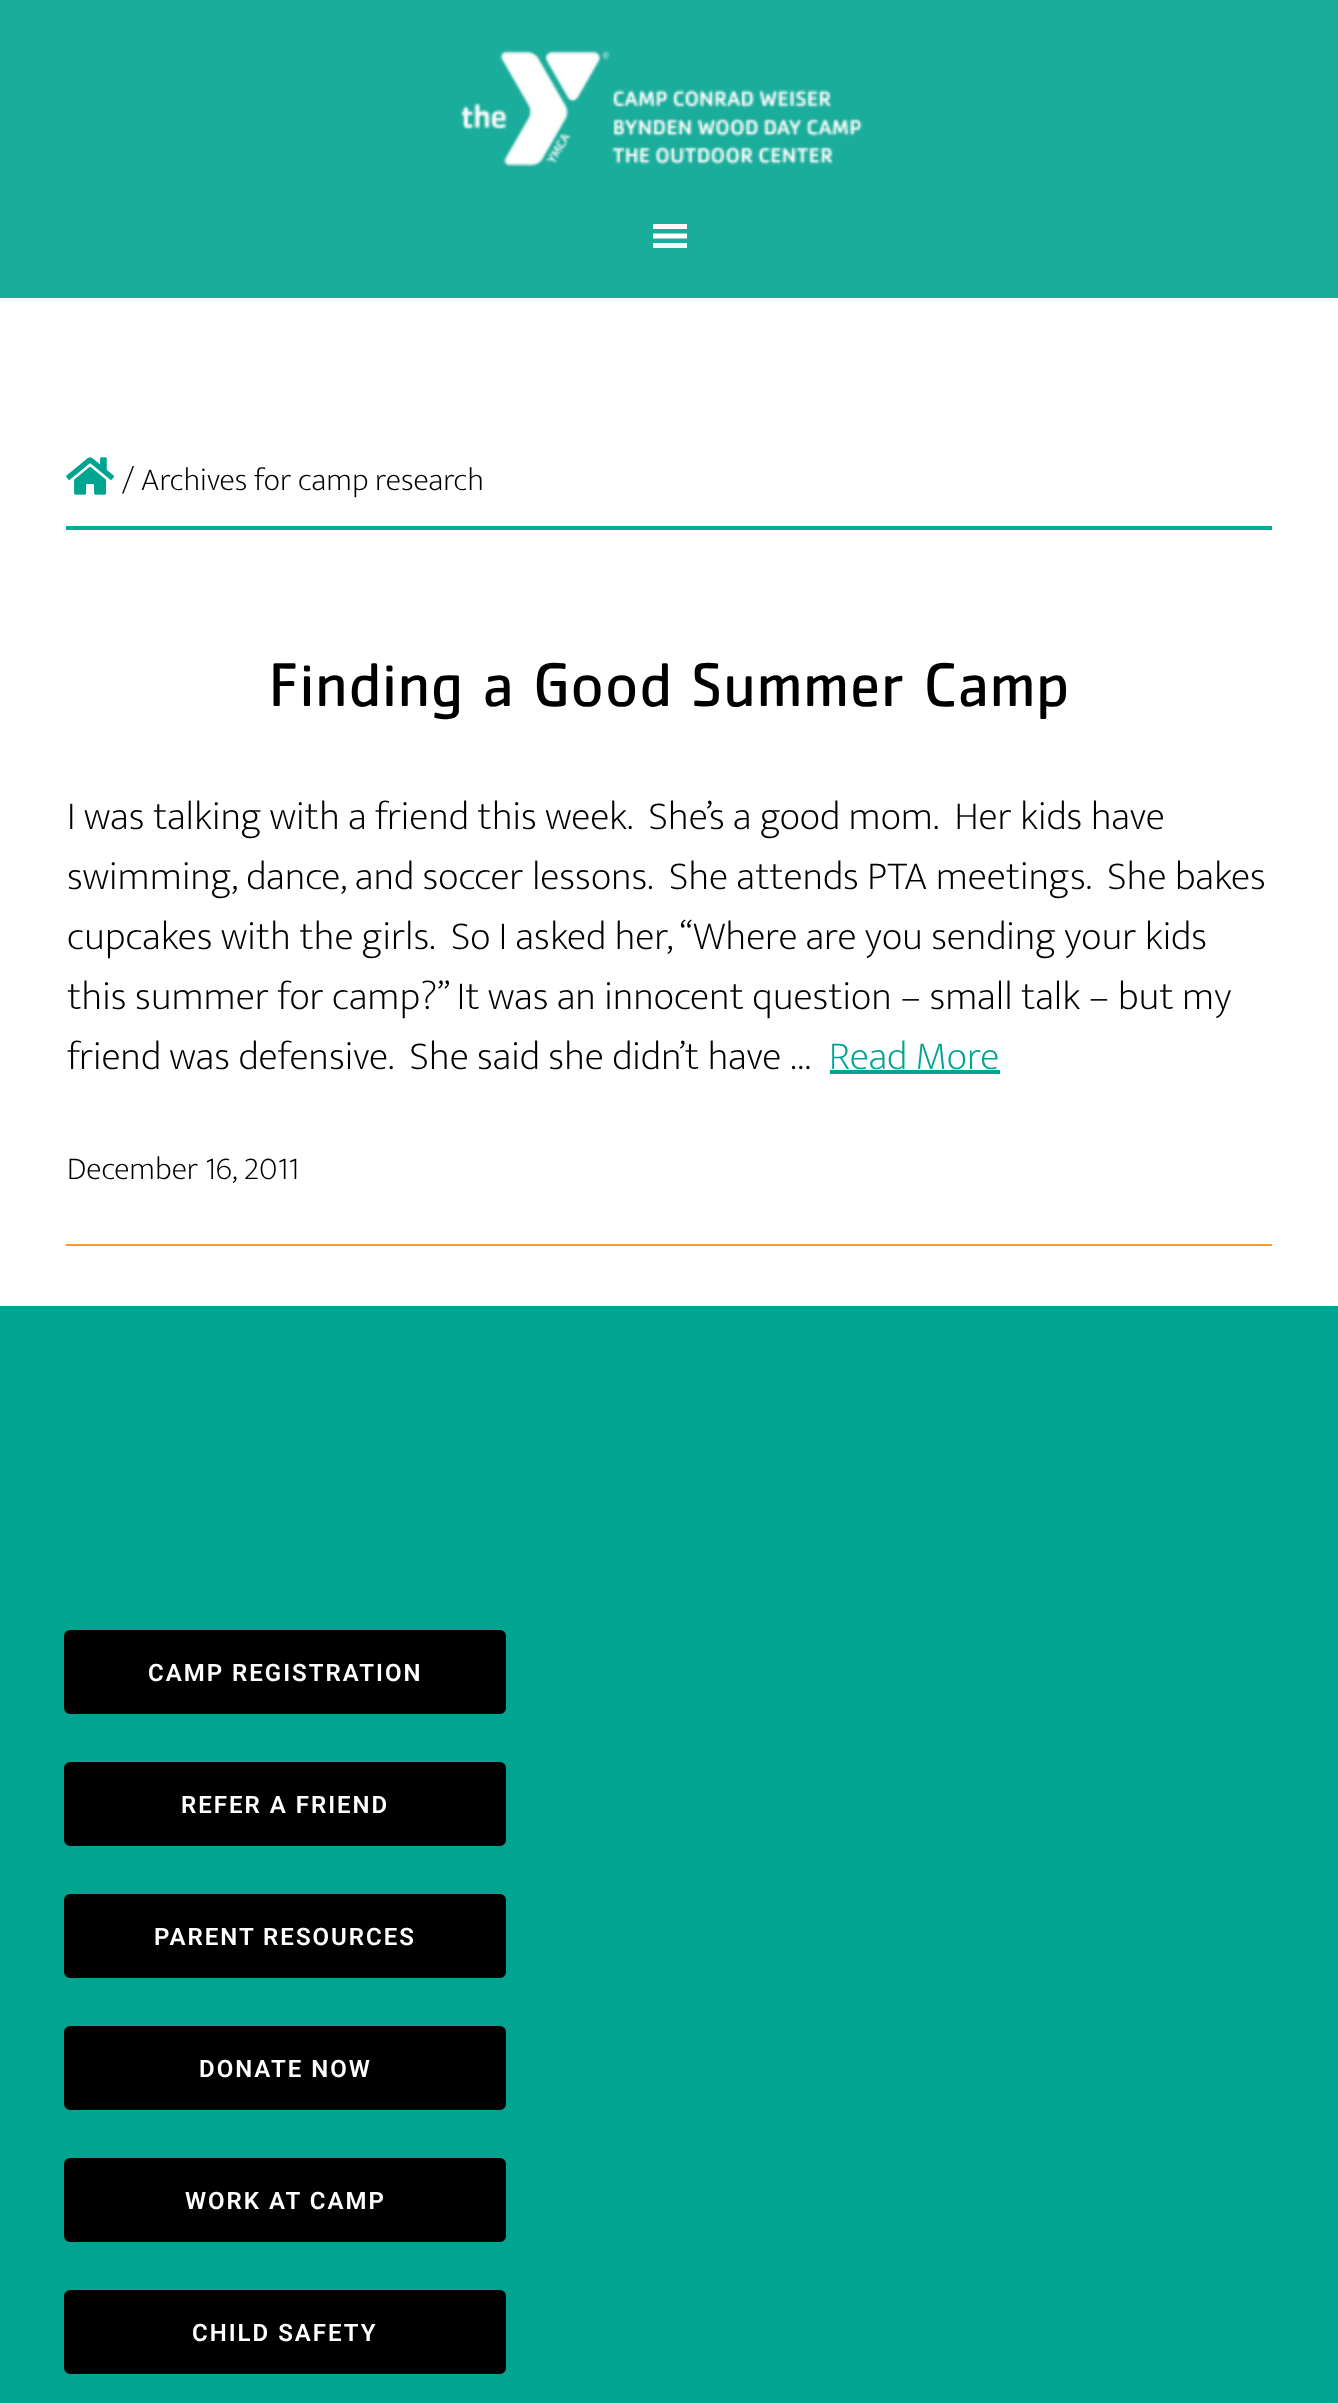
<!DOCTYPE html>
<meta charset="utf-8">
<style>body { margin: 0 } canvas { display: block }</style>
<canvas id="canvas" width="1338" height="2403"></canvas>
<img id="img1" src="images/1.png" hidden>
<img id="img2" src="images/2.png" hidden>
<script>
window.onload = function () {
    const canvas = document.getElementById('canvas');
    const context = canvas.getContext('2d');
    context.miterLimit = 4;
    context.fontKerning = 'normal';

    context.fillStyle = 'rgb(255, 255, 255)';
    context.fillRect(0, 0, 1338, 2403);
    context.fillStyle = 'rgb(26, 173, 155)';
    context.fillRect(0, 0, 1338, 298);
    context.drawImage(document.getElementById('img1'), 459, 49, 404, 118);
    context.fillStyle = 'rgb(255, 255, 255)';
    context.beginPath();
    context.moveTo(653, 248);
    context.lineTo(687, 248);
    context.lineTo(687, 243);
    context.lineTo(653, 243);
    context.closePath();
    context.moveTo(653, 224);
    context.lineTo(653, 229);
    context.lineTo(687, 229);
    context.lineTo(687, 224);
    context.closePath();
    context.moveTo(653, 238.5);
    context.lineTo(687, 238.5);
    context.lineTo(687, 233.5);
    context.lineTo(653, 233.5);
    context.closePath();
    context.fill();
    context.fillStyle = 'rgb(0, 171, 149)';
    context.fillRect(66, 526, 1206, 4);
    context.drawImage(document.getElementById('img2'), 66, 457, 49, 38);
    context.fillStyle = 'rgb(1, 164, 144)';
    context.fillRect(830, 1070, 170, 4);
    context.fillStyle = 'rgb(249, 157, 28)';
    context.fillRect(66, 1244, 1206, 2);
    context.fillStyle = 'rgb(1, 164, 144)';
    context.fillRect(0, 1306, 1338, 1097);
    context.fillStyle = 'rgb(0, 0, 0)';
    context.beginPath();
    context.roundRect(62, 1628, 446, 88, 8);
    context.fill();
    context.strokeStyle = 'rgb(1, 164, 144)';
    context.lineWidth = 4;
    context.stroke();
    context.beginPath();
    context.roundRect(62, 1760, 446, 88, 8);
    context.fill();
    context.stroke();
    context.beginPath();
    context.roundRect(62, 1892, 446, 88, 8);
    context.fill();
    context.stroke();
    context.beginPath();
    context.roundRect(62, 2024, 446, 88, 8);
    context.fill();
    context.stroke();
    context.beginPath();
    context.roundRect(62, 2156, 446, 88, 8);
    context.fill();
    context.stroke();
    context.beginPath();
    context.roundRect(62, 2288, 446, 88, 8);
    context.fill();
    context.stroke();
    context.font = '200 32px Ek Mukta';
    context.fillText('/ Archives for camp research', 122, 490);
    context.font = '64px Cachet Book';
    context.fillText('Finding a Good Summer Camp', 268, 706);
    context.font = '200 40px Ek Mukta';
    context.fillText('I was talking with a friend this week.  She’s a good mom.  Her kids have', 67, 829);
    context.fillText('swimming, dance, and soccer lessons.  She attends PTA meetings.  She bakes', 67, 889);
    context.fillText('cupcakes with the girls.  So I asked her, “Where are you sending your kids', 67, 949);
    context.fillText('this summer for camp?” It was an innocent question – small talk – but my', 67, 1009);
    context.fillText('friend was defensive.  She said she didn’t have …', 67, 1069);
    context.fillStyle = 'rgb(1, 164, 144)';
    context.fillText('Read More', 829, 1069);
    context.font = '200 32px Ek Mukta';
    context.fillStyle = 'rgb(0, 0, 0)';
    context.fillText('December 16, 2011', 67, 1179);
    context.letterSpacing = '2px';
    context.font = '600 24px Roboto';
    context.fillStyle = 'rgb(255, 255, 255)';
    context.fillText('CAMP REGISTRATION', 148, 1681);
    context.fillText('REFER A FRIEND', 181, 1813);
    context.fillText('PARENT RESOURCES', 154, 1945);
    context.fillText('DONATE NOW', 199, 2077);
    context.fillText('WORK AT CAMP', 185, 2209);
    context.fillText('CHILD SAFETY', 192, 2341);
};
</script>
